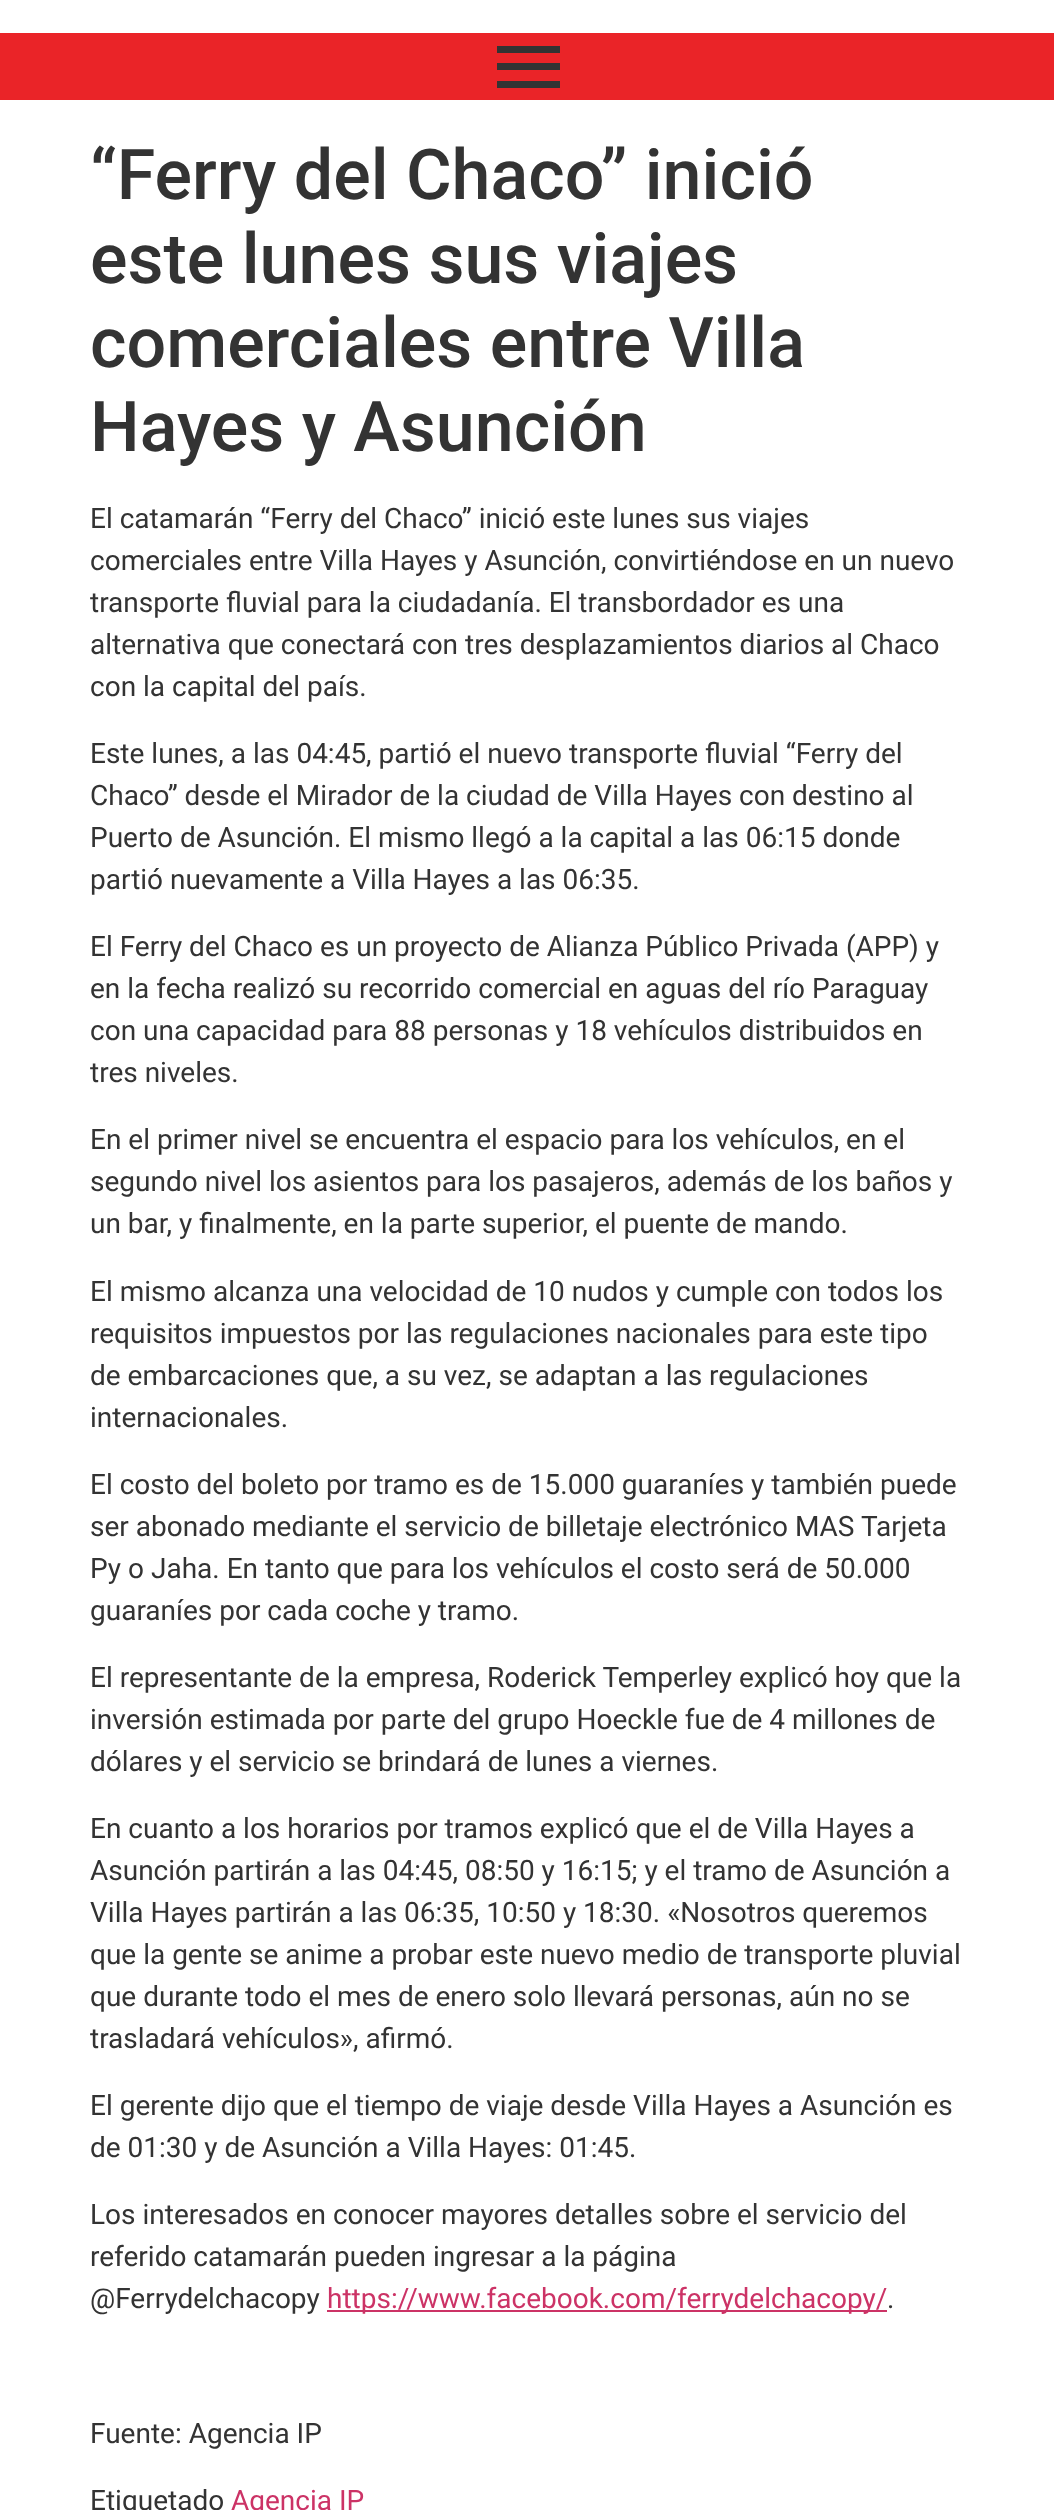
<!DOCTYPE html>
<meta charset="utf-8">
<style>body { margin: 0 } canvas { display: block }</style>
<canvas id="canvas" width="1054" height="2510"></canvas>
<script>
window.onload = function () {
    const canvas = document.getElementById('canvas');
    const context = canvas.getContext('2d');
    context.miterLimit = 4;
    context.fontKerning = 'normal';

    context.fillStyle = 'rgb(255, 255, 255)';
    context.fillRect(0, 0, 1054, 2510);
    context.fillStyle = 'rgb(234, 36, 40)';
    context.fillRect(0, 33, 1054, 67);
    context.fillStyle = 'rgb(51, 51, 51)';
    context.fillRect(497, 46, 63, 7);
    context.fillRect(497, 63, 63, 7);
    context.fillRect(497, 81, 63, 7);
    context.fillStyle = 'rgb(204, 51, 102)';
    context.fillRect(327, 2310, 560, 2);
    context.font = '500 70px Roboto';
    context.fillStyle = 'rgb(51, 51, 51)';
    context.fillText('“Ferry del Chaco” inició', 90, 199);
    context.fillText('este lunes sus viajes', 90, 283);
    context.fillText('comerciales entre Villa', 90, 367);
    context.fillText('Hayes y Asunción', 90, 451);
    context.font = '28px Roboto';
    context.fillText('El catamarán “Ferry del Chaco” inició este lunes sus viajes', 90, 528);
    context.fillText('comerciales entre Villa Hayes y Asunción, convirtiéndose en un nuevo', 90, 570);
    context.fillText('transporte fluvial para la ciudadanía. El transbordador es una', 90, 612);
    context.fillText('alternativa que conectará con tres desplazamientos diarios al Chaco', 90, 654);
    context.fillText('con la capital del país.', 90, 696);
    context.fillText('Este lunes, a las 04:45, partió el nuevo transporte fluvial “Ferry del', 90, 763);
    context.fillText('Chaco” desde el Mirador de la ciudad de Villa Hayes con destino al', 90, 805);
    context.fillText('Puerto de Asunción. El mismo llegó a la capital a las 06:15 donde', 90, 847);
    context.fillText('partió nuevamente a Villa Hayes a las 06:35.', 90, 889);
    context.fillText('El Ferry del Chaco es un proyecto de Alianza Público Privada (APP) y', 90, 956);
    context.fillText('en la fecha realizó su recorrido comercial en aguas del río Paraguay', 90, 998);
    context.fillText('con una capacidad para 88 personas y 18 vehículos distribuidos en', 90, 1040);
    context.fillText('tres niveles.', 90, 1082);
    context.fillText('En el primer nivel se encuentra el espacio para los vehículos, en el', 90, 1149);
    context.fillText('segundo nivel los asientos para los pasajeros, además de los baños y', 90, 1191);
    context.fillText('un bar, y finalmente, en la parte superior, el puente de mando.', 90, 1233);
    context.fillText('El mismo alcanza una velocidad de 10 nudos y cumple con todos los', 90, 1301);
    context.fillText('requisitos impuestos por las regulaciones nacionales para este tipo', 90, 1343);
    context.fillText('de embarcaciones que, a su vez, se adaptan a las regulaciones', 90, 1385);
    context.fillText('internacionales.', 90, 1427);
    context.fillText('El costo del boleto por tramo es de 15.000 guaraníes y también puede', 90, 1494);
    context.fillText('ser abonado mediante el servicio de billetaje electrónico MAS Tarjeta', 90, 1536);
    context.fillText('Py o Jaha. En tanto que para los vehículos el costo será de 50.000', 90, 1578);
    context.fillText('guaraníes por cada coche y tramo.', 90, 1620);
    context.fillText('El representante de la empresa, Roderick Temperley explicó hoy que la', 90, 1687);
    context.fillText('inversión estimada por parte del grupo Hoeckle fue de 4 millones de', 90, 1729);
    context.fillText('dólares y el servicio se brindará de lunes a viernes.', 90, 1771);
    context.fillText('En cuanto a los horarios por tramos explicó que el de Villa Hayes a', 90, 1838);
    context.fillText('Asunción partirán a las 04:45, 08:50 y 16:15; y el tramo de Asunción a', 90, 1880);
    context.fillText('Villa Hayes partirán a las 06:35, 10:50 y 18:30. «Nosotros queremos', 90, 1922);
    context.fillText('que la gente se anime a probar este nuevo medio de transporte pluvial', 90, 1964);
    context.fillText('que durante todo el mes de enero solo llevará personas, aún no se', 90, 2006);
    context.fillText('trasladará vehículos», afirmó.', 90, 2048);
    context.fillText('El gerente dijo que el tiempo de viaje desde Villa Hayes a Asunción es', 90, 2115);
    context.fillText('de 01:30 y de Asunción a Villa Hayes: 01:45.', 90, 2157);
    context.fillText('Los interesados en conocer mayores detalles sobre el servicio del', 90, 2224);
    context.fillText('referido catamarán pueden ingresar a la página', 90, 2266);
    context.fillText('@Ferrydelchacopy', 90, 2308);
    context.fillStyle = 'rgb(204, 51, 102)';
    context.fillText('https://www.facebook.com/ferrydelchacopy/', 327, 2308);
    context.fillStyle = 'rgb(51, 51, 51)';
    context.fillText('.', 887, 2308);
    context.fillText('Fuente: Agencia IP', 90, 2443);
    context.fillText('Etiquetado', 90, 2510);
    context.fillStyle = 'rgb(204, 51, 102)';
    context.fillText('Agencia IP', 231, 2510);
};
</script>
